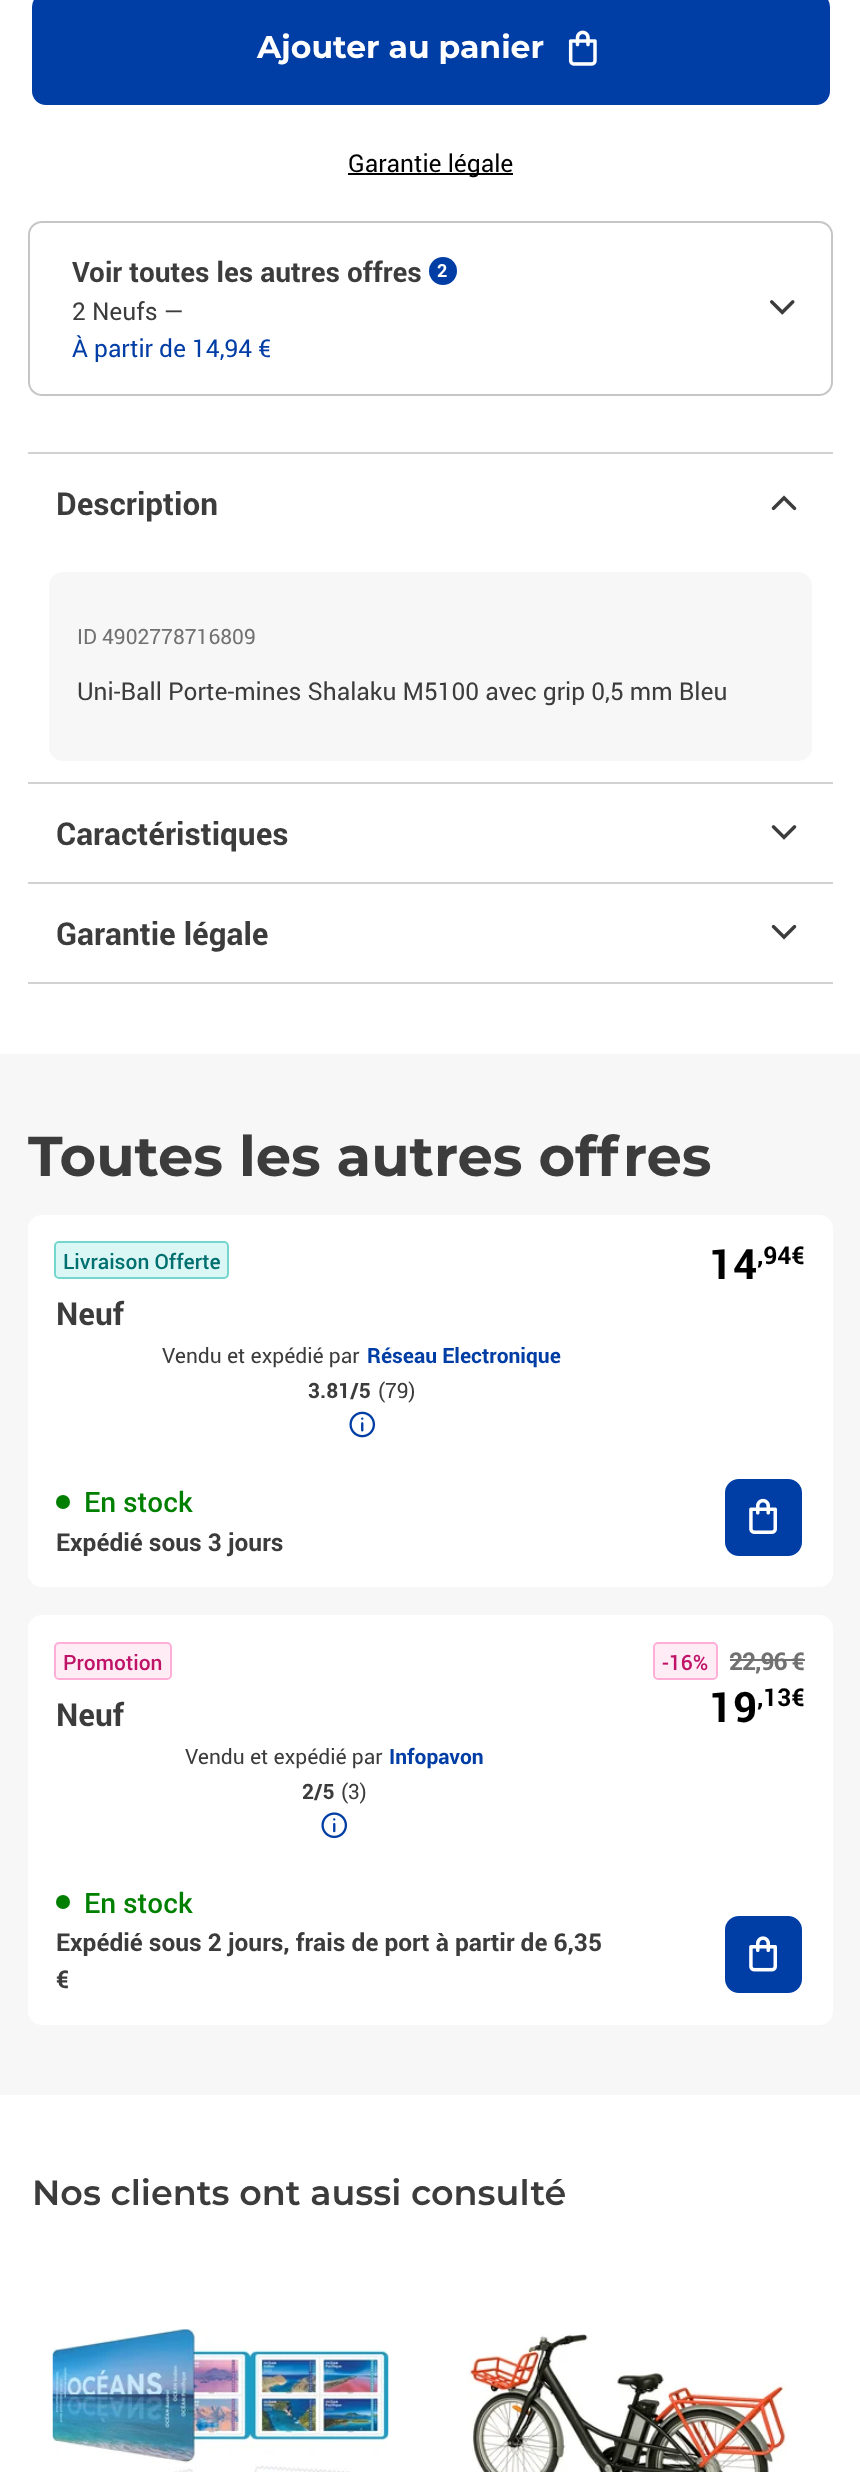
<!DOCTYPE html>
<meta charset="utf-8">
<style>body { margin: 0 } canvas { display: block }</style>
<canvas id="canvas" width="860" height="2472"></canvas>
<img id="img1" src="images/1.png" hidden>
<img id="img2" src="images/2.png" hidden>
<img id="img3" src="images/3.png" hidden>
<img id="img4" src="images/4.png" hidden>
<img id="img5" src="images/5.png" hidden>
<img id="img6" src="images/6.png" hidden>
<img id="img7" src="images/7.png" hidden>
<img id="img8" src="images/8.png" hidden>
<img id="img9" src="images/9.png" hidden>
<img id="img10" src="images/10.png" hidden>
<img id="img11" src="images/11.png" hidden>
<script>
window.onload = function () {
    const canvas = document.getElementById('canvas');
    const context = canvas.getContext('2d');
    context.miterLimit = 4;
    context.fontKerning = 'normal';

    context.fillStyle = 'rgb(255, 255, 255)';
    context.fillRect(0, 0, 860, 2472);
    context.fillStyle = 'rgb(0, 61, 165)';
    context.beginPath();
    context.roundRect(33, -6, 796, 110, 13);
    context.fill();
    context.strokeStyle = 'rgb(0, 61, 165)';
    context.lineWidth = 2;
    context.stroke();
    context.drawImage(document.getElementById('img1'), 568, 30, 29, 36);
    context.fillStyle = 'rgb(0, 0, 0)';
    context.fillRect(348, 173, 165, 2);
    context.beginPath();
    context.roundRect(29, 222, 803, 173, 13);
    context.strokeStyle = 'rgb(198, 198, 198)';
    context.stroke();
    context.fillStyle = 'rgb(0, 61, 165)';
    context.beginPath();
    context.arc(443, 271, 14, 0, 2 * Math.PI);
    context.fill();
    context.drawImage(document.getElementById('img2'), 770, 300, 25, 15);
    context.fillStyle = 'rgb(210, 210, 209)';
    context.fillRect(28, 452, 805, 2);
    context.fillRect(28, 782, 805, 2);
    context.drawImage(document.getElementById('img3'), 771, 495, 26, 16);
    context.fillStyle = 'rgb(247, 247, 247)';
    context.beginPath();
    context.roundRect(49, 572, 763, 189, 14);
    context.fill();
    context.drawImage(document.getElementById('img4'), 771, 825, 26, 15);
    context.fillStyle = 'rgb(210, 210, 209)';
    context.fillRect(28, 882, 805, 2);
    context.fillRect(28, 982, 805, 2);
    context.drawImage(document.getElementById('img5'), 771, 924, 26, 16);
    context.fillStyle = 'rgb(247, 247, 247)';
    context.fillRect(0, 1054, 860, 1041);
    context.fillStyle = 'rgb(255, 255, 255)';
    context.beginPath();
    context.roundRect(28, 1215, 805, 372, 14);
    context.fill();
    context.fillStyle = 'rgb(218, 247, 245)';
    context.beginPath();
    context.roundRect(56, 1243, 172, 35, 4);
    context.fill();
    context.beginPath();
    context.roundRect(55, 1242, 173, 36, 4);
    context.strokeStyle = 'rgb(115, 215, 206)';
    context.stroke();
    context.drawImage(document.getElementById('img6'), 349, 1411, 27, 27);
    context.fillStyle = 'rgb(0, 127, 0)';
    context.beginPath();
    context.arc(63, 1502, 7, 0, 2 * Math.PI);
    context.fill();
    context.fillStyle = 'rgb(0, 61, 165)';
    context.beginPath();
    context.roundRect(726, 1480, 75, 75, 13);
    context.fill();
    context.strokeStyle = 'rgb(0, 61, 165)';
    context.stroke();
    context.drawImage(document.getElementById('img7'), 749, 1498, 28, 36);
    context.fillStyle = 'rgb(255, 255, 255)';
    context.beginPath();
    context.roundRect(28, 1615, 805, 410, 14);
    context.fill();
    context.fillStyle = 'rgb(255, 236, 245)';
    context.beginPath();
    context.roundRect(56, 1643, 114, 35, 4);
    context.fill();
    context.beginPath();
    context.roundRect(55, 1643, 116, 36, 4);
    context.strokeStyle = 'rgb(255, 175, 215)';
    context.stroke();
    context.drawImage(document.getElementById('img8'), 321, 1812, 27, 27);
    context.fillStyle = 'rgb(0, 127, 0)';
    context.beginPath();
    context.arc(63, 1902, 7, 0, 2 * Math.PI);
    context.fill();
    context.fillStyle = 'rgb(255, 236, 245)';
    context.beginPath();
    context.roundRect(655, 1643, 61, 35, 4);
    context.fill();
    context.beginPath();
    context.roundRect(654, 1643, 63, 36, 4);
    context.stroke();
    context.fillStyle = 'rgb(113, 113, 113)';
    context.fillRect(730, 1659, 75, 2);
    context.fillStyle = 'rgb(0, 61, 165)';
    context.beginPath();
    context.roundRect(726, 1917, 75, 75, 13);
    context.fill();
    context.strokeStyle = 'rgb(0, 61, 165)';
    context.stroke();
    context.drawImage(document.getElementById('img9'), 749, 1936, 28, 36);
    context.drawImage(document.getElementById('img10'), 52, 2329, 337, 143);
    context.drawImage(document.getElementById('img11'), 468, 2334, 322, 138);
    context.font = 'bold 31.5px Montserrat';
    context.fillStyle = 'rgb(255, 255, 255)';
    context.fillText('Ajouter au panier', 257, 58);
    context.font = '24.5px Roboto';
    context.fillStyle = 'rgb(0, 0, 0)';
    context.fillText('Garantie légale', 348, 172);
    context.font = 'bold 28px Roboto';
    context.fillStyle = 'rgb(60, 60, 60)';
    context.fillText('Voir toutes les autres offres', 72, 282);
    context.font = 'bold 18px Roboto';
    context.fillStyle = 'rgb(255, 255, 255)';
    context.fillText('2', 437, 277);
    context.font = '24.5px Roboto';
    context.fillStyle = 'rgb(60, 60, 60)';
    context.fillText('2 Neufs —', 72, 320);
    context.fillStyle = 'rgb(0, 61, 165)';
    context.fillText('À partir de 14,94 €', 72, 357);
    context.font = 'bold 31.5px Roboto';
    context.fillStyle = 'rgb(60, 60, 60)';
    context.fillText('Description', 56, 515);
    context.font = '21px Roboto';
    context.fillStyle = 'rgb(113, 113, 113)';
    context.fillText('ID 4902778716809', 77, 644);
    context.font = '24.5px Roboto';
    context.fillStyle = 'rgb(60, 60, 60)';
    context.fillText('Uni-Ball Porte-mines Shalaku M5100 avec grip 0,5 mm Bleu', 77, 700);
    context.font = 'bold 31.5px Roboto';
    context.fillText('Caractéristiques', 56, 845);
    context.fillText('Garantie légale', 56, 945);
    context.font = 'bold 56px Montserrat';
    context.fillText('Toutes les autres offres', 28, 1176);
    context.font = '500 21px Roboto';
    context.fillStyle = 'rgb(0, 111, 111)';
    context.fillText('Livraison Offerte', 63, 1269);
    context.font = 'bold 31.5px Roboto';
    context.fillStyle = 'rgb(60, 60, 60)';
    context.fillText('Neuf', 56, 1325);
    context.font = '21px Roboto';
    context.fillText('Vendu et expédié par', 162, 1363);
    context.font = 'bold 21px Roboto';
    context.fillStyle = 'rgb(0, 61, 165)';
    context.fillText('Réseau Electronique', 367, 1363);
    context.fillStyle = 'rgb(60, 60, 60)';
    context.fillText('3.81/5', 308, 1398);
    context.font = '21px Roboto';
    context.fillText('(79)', 378, 1398);
    context.font = '500 28px Roboto';
    context.fillStyle = 'rgb(0, 127, 0)';
    context.fillText('En stock', 84, 1512);
    context.font = 'bold 24.5px Roboto';
    context.fillStyle = 'rgb(60, 60, 60)';
    context.fillText('Expédié sous 3 jours', 56, 1551);
    context.font = 'bold 42px Roboto';
    context.fillStyle = 'rgb(0, 0, 0)';
    context.fillText('14', 709, 1279);
    context.font = 'bold 24.5px Roboto';
    context.fillText(',94€', 757, 1264);
    context.font = '500 21px Roboto';
    context.fillStyle = 'rgb(191, 19, 104)';
    context.fillText('Promotion', 63, 1670);
    context.font = 'bold 31.5px Roboto';
    context.fillStyle = 'rgb(60, 60, 60)';
    context.fillText('Neuf', 56, 1726);
    context.font = '21px Roboto';
    context.fillText('Vendu et expédié par', 185, 1764);
    context.font = 'bold 21px Roboto';
    context.fillStyle = 'rgb(0, 61, 165)';
    context.fillText('Infopavon', 389, 1764);
    context.fillStyle = 'rgb(60, 60, 60)';
    context.fillText('2/5', 302, 1799);
    context.font = '21px Roboto';
    context.fillText('(3)', 341, 1799);
    context.font = '500 28px Roboto';
    context.fillStyle = 'rgb(0, 127, 0)';
    context.fillText('En stock', 84, 1913);
    context.font = 'bold 24.5px Roboto';
    context.fillStyle = 'rgb(60, 60, 60)';
    context.fillText('Expédié sous 2 jours, frais de port à partir de 6,35', 56, 1951);
    context.fillText('€', 56, 1988);
    context.font = '500 21px Roboto';
    context.fillStyle = 'rgb(191, 19, 104)';
    context.fillText('-16%', 662, 1670);
    context.letterSpacing = '-1px';
    context.font = 'bold 24.5px Roboto';
    context.fillStyle = 'rgb(113, 113, 113)';
    context.fillText('22,96 €', 729, 1670);
    context.letterSpacing = '0px';
    context.font = 'bold 42px Roboto';
    context.fillStyle = 'rgb(0, 0, 0)';
    context.fillText('19', 709, 1722);
    context.font = 'bold 24.5px Roboto';
    context.fillText(',13€', 757, 1706);
    context.font = '600 35px Montserrat';
    context.fillStyle = 'rgb(60, 60, 60)';
    context.fillText('Nos clients ont aussi consulté', 32, 2205);
};
</script>
